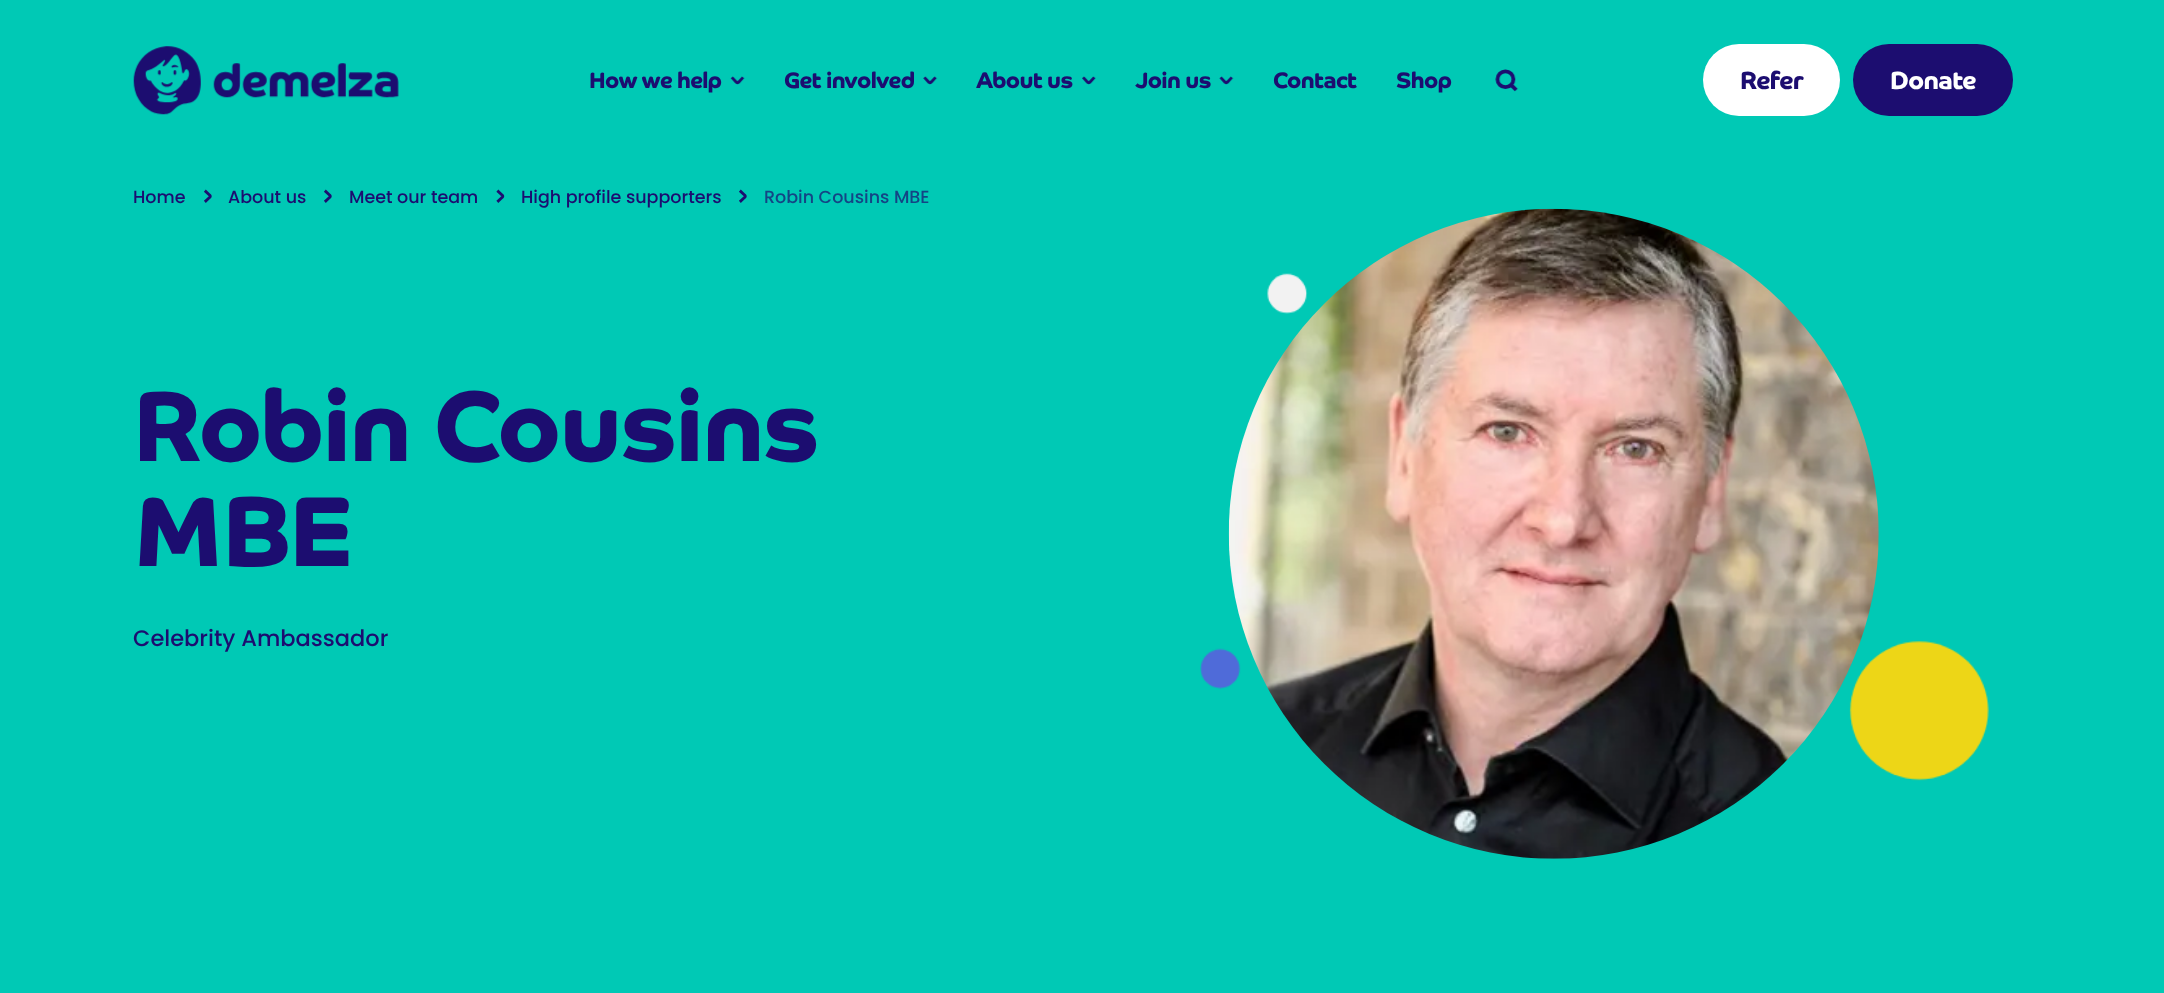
<!DOCTYPE html>
<meta charset="utf-8">
<style>body { margin: 0 } canvas { display: block }</style>
<canvas id="canvas" width="2164" height="993"></canvas>
<img id="img1" src="images/1.png" hidden>
<img id="img2" src="images/2.png" hidden>
<img id="img3" src="images/3.png" hidden>
<img id="img4" src="images/4.png" hidden>
<img id="img5" src="images/5.png" hidden>
<img id="img6" src="images/6.png" hidden>
<img id="img7" src="images/7.png" hidden>
<img id="img8" src="images/8.png" hidden>
<img id="img9" src="images/10.png" hidden>
<img id="img10" src="images/9.png" hidden>
<script>
window.onload = function () {
    const canvas = document.getElementById('canvas');
    const context = canvas.getContext('2d');
    context.miterLimit = 4;
    context.fontKerning = 'normal';

    context.fillStyle = 'rgb(0, 201, 181)';
    context.fillRect(0, 0, 2164, 993);
    context.drawImage(document.getElementById('img1'), 133, 46, 266, 69);
    context.drawImage(document.getElementById('img2'), 730, 76, 15, 9);
    context.drawImage(document.getElementById('img3'), 923, 76, 15, 9);
    context.drawImage(document.getElementById('img4'), 1082, 76, 14, 9);
    context.drawImage(document.getElementById('img5'), 1219, 76, 15, 9);
    context.drawImage(document.getElementById('img6'), 1495, 69, 24, 23);
    context.fillStyle = 'rgb(255, 255, 255)';
    context.beginPath();
    context.roundRect(1703, 44, 137, 72, 36);
    context.fill();
    context.fillStyle = 'rgb(28, 13, 112)';
    context.beginPath();
    context.roundRect(1853, 44, 160, 72, 36);
    context.fill();
    context.drawImage(document.getElementById('img7'), 204, 189, 8, 14);
    context.drawImage(document.getElementById('img7'), 324, 189, 8, 14);
    context.drawImage(document.getElementById('img8'), 496, 189, 9, 14);
    context.drawImage(document.getElementById('img7'), 739, 189, 8, 14);
    context.drawImage(document.getElementById('img9'), 1200, 273, 789, 508);
    context.drawImage(document.getElementById('img10'), 1228, 208, 651, 651);
    context.letterSpacing = '-0.6px';
    context.font = 'bold 22.5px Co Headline';
    context.fillText('How we help', 589, 88);
    context.fillText('Get involved', 784, 88);
    context.fillText('About us', 976, 88);
    context.fillText('Join us', 1135, 88);
    context.fillText('Contact', 1273, 88);
    context.fillText('Shop', 1396, 88);
    context.font = 'bold 25px Co Headline';
    context.fillText('Refer', 1740, 89);
    context.fillStyle = 'rgb(255, 255, 255)';
    context.fillText('Donate', 1890, 89);
    context.letterSpacing = '0px';
    context.font = '500 17.5px Poppins';
    context.fillStyle = 'rgb(28, 13, 112)';
    context.fillText('Home', 133, 203);
    context.fillText('About us', 228, 203);
    context.fillText('Meet our team', 349, 203);
    context.fillText('High profile supporters', 521, 203);
    context.fillStyle = 'rgb(20, 69, 133)';
    context.fillText('Robin Cousins MBE', 764, 203);
    context.letterSpacing = '-1.25px';
    context.font = 'bold 100px Co Headline';
    context.fillStyle = 'rgb(28, 13, 112)';
    context.fillText('Robin Cousins', 133, 461);
    context.fillText('MBE', 133, 566);
    context.letterSpacing = '0px';
    context.font = '500 22.5px Poppins';
    context.fillText('Celebrity Ambassador', 133, 646);
};
</script>
